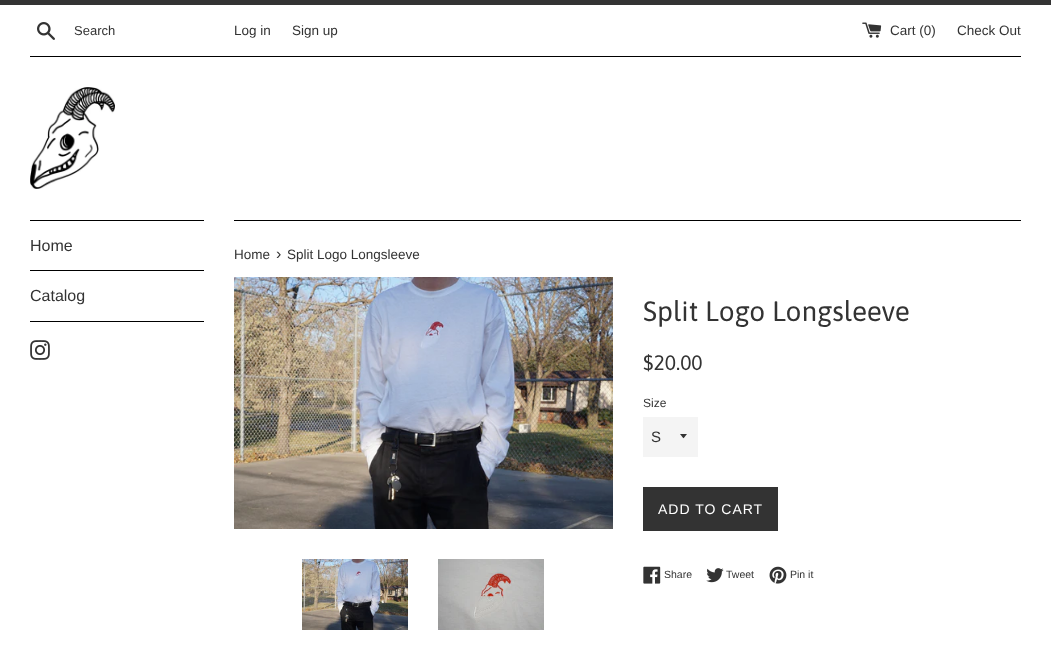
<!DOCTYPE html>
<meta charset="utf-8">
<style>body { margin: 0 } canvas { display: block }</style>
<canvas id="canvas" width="1051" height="648"></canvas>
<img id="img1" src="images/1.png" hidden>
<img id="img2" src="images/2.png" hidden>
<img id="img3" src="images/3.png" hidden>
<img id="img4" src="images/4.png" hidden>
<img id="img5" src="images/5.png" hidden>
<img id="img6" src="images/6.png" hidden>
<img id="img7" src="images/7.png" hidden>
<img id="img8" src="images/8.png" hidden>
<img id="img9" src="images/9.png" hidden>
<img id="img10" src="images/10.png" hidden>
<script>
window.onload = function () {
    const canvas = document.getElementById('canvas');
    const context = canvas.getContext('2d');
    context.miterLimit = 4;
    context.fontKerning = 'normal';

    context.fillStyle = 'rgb(255, 255, 255)';
    context.fillRect(0, 0, 1051, 648);
    context.fillStyle = 'rgb(51, 51, 51)';
    context.fillRect(0, 0, 1051, 5);
    context.drawImage(document.getElementById('img1'), 37, 22, 18, 18);
    context.drawImage(document.getElementById('img2'), 862, 22, 20, 16);
    context.fillStyle = 'rgb(0, 0, 0)';
    context.fillRect(30, 56, 991, 1);
    context.drawImage(document.getElementById('img3'), 30, 87, 85, 102);
    context.fillRect(30, 220, 174, 1);
    context.fillRect(30, 270, 174, 1);
    context.fillRect(30, 321, 174, 1);
    context.drawImage(document.getElementById('img4'), 30, 340, 20, 20);
    context.fillRect(234, 220, 787, 1);
    context.drawImage(document.getElementById('img5'), 234, 277, 379, 252);
    context.drawImage(document.getElementById('img6'), 302, 559, 106, 71);
    context.drawImage(document.getElementById('img7'), 438, 559, 106, 71);
    context.fillStyle = 'rgb(244, 244, 244)';
    context.fillRect(643, 417, 55, 40);
    context.fillStyle = 'rgb(51, 51, 51)';
    context.beginPath();
    context.moveTo(680, 434);
    context.bezierCurveTo(684.5, 439.5, 682.5, 439.5, 687, 434);
    context.closePath();
    context.fill();
    context.fillRect(643, 487, 135, 44);
    context.drawImage(document.getElementById('img8'), 643, 566, 18, 18);
    context.drawImage(document.getElementById('img9'), 706, 568, 18, 15);
    context.drawImage(document.getElementById('img10'), 769, 566, 18, 18);
    context.font = '13px Liberation Sans';
    context.fillText('Search', 74, 35);
    context.font = '13.5px Liberation Sans';
    context.fillText('Log in', 234, 35);
    context.fillText('Sign up', 292, 35);
    context.fillText('Cart (0)', 890, 35);
    context.fillText('Check Out', 957, 35);
    context.font = '16px Liberation Sans';
    context.fillText('Home', 30, 251);
    context.fillText('Catalog', 30, 301);
    context.font = '13.5px Liberation Sans';
    context.fillText('Home', 234, 259);
    context.font = '16px Liberation Sans';
    context.fillText('›', 276, 259);
    context.font = '13.5px Liberation Sans';
    context.fillText('Split Logo Longsleeve', 287, 259);
    context.font = '28px Asap';
    context.fillText('Split Logo Longsleeve', 643, 321);
    context.font = '21px Asap';
    context.fillText('$20.00', 643, 370);
    context.font = '12px Liberation Sans';
    context.fillText('Size', 643, 407);
    context.font = '15px Liberation Sans';
    context.fillText('S', 651, 442);
    context.letterSpacing = '1px';
    context.font = '14px Liberation Sans';
    context.fillStyle = 'rgb(255, 255, 255)';
    context.fillText('ADD TO CART', 658, 514);
    context.letterSpacing = '0px';
    context.font = '10.5px Liberation Sans';
    context.fillStyle = 'rgb(51, 51, 51)';
    context.fillText('Share', 664, 578);
    context.fillText('Tweet', 726, 578);
    context.fillText('Pin it', 790, 578);
};
</script>
